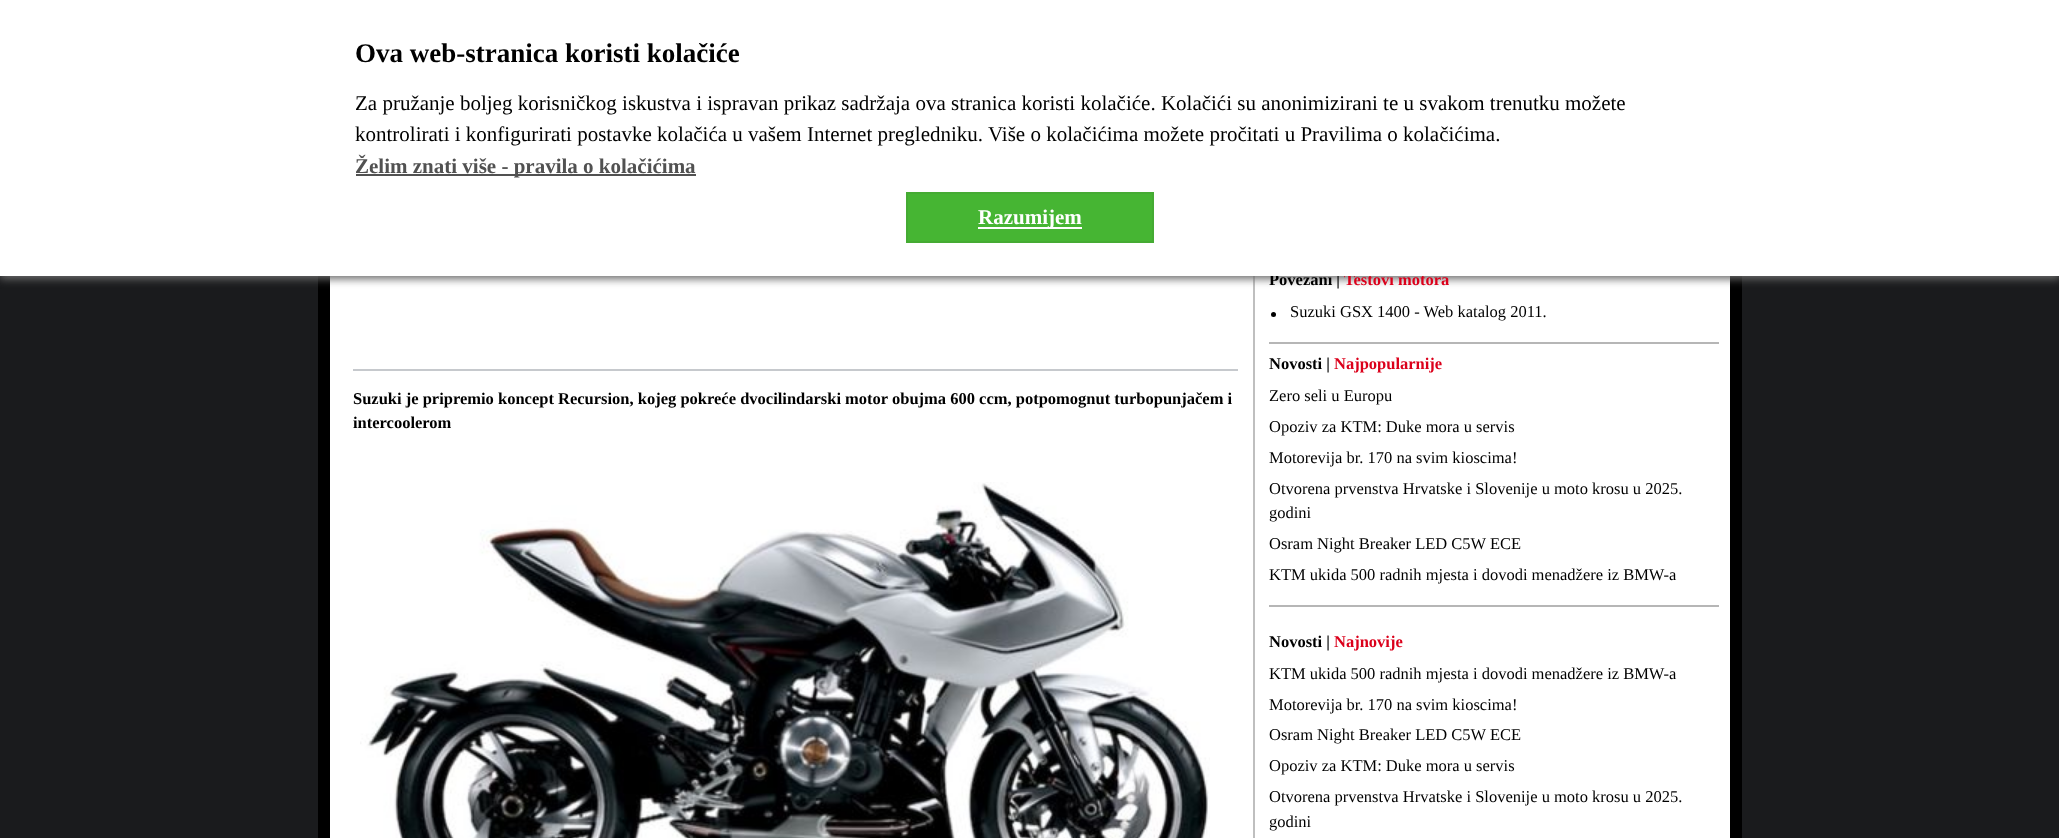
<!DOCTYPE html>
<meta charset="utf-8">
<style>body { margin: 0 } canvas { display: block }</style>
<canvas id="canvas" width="2059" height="838"></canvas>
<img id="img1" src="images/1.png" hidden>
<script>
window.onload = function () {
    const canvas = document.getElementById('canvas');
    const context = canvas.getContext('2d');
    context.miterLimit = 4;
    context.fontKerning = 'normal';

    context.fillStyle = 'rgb(26, 27, 29)';
    context.fillRect(0, 0, 2059, 838);
    context.fillStyle = 'rgb(255, 255, 255)';
    context.fillRect(330, 276, 1400, 562);
    context.fillStyle = 'rgb(0, 0, 0)';
    context.fillRect(1730, 276, 12, 562);
    context.fillRect(318, 276, 12, 562);
    context.fillStyle = 'rgb(191, 191, 191)';
    context.fillRect(1253, 276, 2, 562);
    context.fillStyle = 'rgb(107, 107, 107)';
    context.filter = 'blur(4px)';
    context.beginPath();
    context.rect(0, 3, 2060, 276);
    context.fill();
    context.filter = 'none';
    context.fillStyle = 'rgb(198, 201, 205)';
    context.fillRect(353, 369, 885, 2);
    context.drawImage(document.getElementById('img1'), 360, 482, 850, 356);
    context.fillStyle = 'rgb(182, 182, 182)';
    context.fillRect(1269, 342, 450, 2);
    context.fillStyle = 'rgb(0, 0, 0)';
    context.beginPath();
    context.arc(1273.5, 314.5, 2.5, 0, 2 * Math.PI);
    context.fill();
    context.fillStyle = 'rgb(182, 182, 182)';
    context.fillRect(1269, 605, 450, 2);
    context.font = 'bold 16.5px Liberation Serif';
    context.fillStyle = 'rgb(0, 0, 0)';
    context.fillText('Suzuki je pripremio koncept Recursion, kojeg pokreće dvocilindarski motor obujma 600 ccm, potpomognut turbopunjačem i', 353, 404);
    context.fillText('intercoolerom', 353, 428);
    context.fillText('Povezani |', 1269, 285);
    context.fillStyle = 'rgb(219, 0, 27)';
    context.fillText('Testovi motora', 1344, 285);
    context.fillStyle = 'rgb(255, 255, 255)';
    context.fillRect(0, 0, 2059, 276);
    context.fillStyle = 'rgb(70, 181, 51)';
    context.beginPath();
    context.rect(907, 193, 246, 49);
    context.fill();
    context.strokeStyle = 'rgb(69, 171, 51)';
    context.lineWidth = 2;
    context.stroke();
    context.fillStyle = 'rgb(255, 255, 255)';
    context.fillRect(978, 227, 104, 2);
    context.font = 'bold 21px Liberation Serif';
    context.fillText('Razumijem', 978, 224);
    context.fillStyle = 'rgb(81, 81, 81)';
    context.fillRect(356, 174, 340, 2);
    context.fillText('Želim znati više - pravila o kolačićima', 355, 173);
    context.font = '21px Liberation Serif';
    context.fillStyle = 'rgb(0, 0, 0)';
    context.fillText('kontrolirati i konfigurirati postavke kolačića u vašem Internet pregledniku. Više o kolačićima možete pročitati u Pravilima o kolačićima.', 355, 141);
    context.fillText('Za pružanje boljeg korisničkog iskustva i ispravan prikaz sadržaja ova stranica koristi kolačiće. Kolačići su anonimizirani te u svakom trenutku možete', 355, 110);
    context.font = 'bold 27px Liberation Serif';
    context.fillText('Ova web-stranica koristi kolačiće', 355, 62);
    context.font = '16.5px Liberation Serif';
    context.fillText('Suzuki GSX 1400 - Web katalog 2011.', 1290, 317);
    context.font = 'bold 16.5px Liberation Serif';
    context.fillText('Novosti |', 1269, 369);
    context.fillStyle = 'rgb(219, 0, 27)';
    context.fillText('Najpopularnije', 1334, 369);
    context.font = '16.5px Liberation Serif';
    context.fillStyle = 'rgb(0, 0, 0)';
    context.fillText('Zero seli u Europu', 1269, 401);
    context.fillText('Opoziv za KTM: Duke mora u servis', 1269, 432);
    context.fillText('Motorevija br. 170 na svim kioscima!', 1269, 463);
    context.fillText('Otvorena prvenstva Hrvatske i Slovenije u moto krosu u 2025.', 1269, 494);
    context.fillText('godini', 1269, 518);
    context.fillText('Osram Night Breaker LED C5W ECE', 1269, 549);
    context.fillText('KTM ukida 500 radnih mjesta i dovodi menadžere iz BMW-a', 1269, 580);
    context.font = 'bold 16.5px Liberation Serif';
    context.fillText('Novosti |', 1269, 647);
    context.fillStyle = 'rgb(219, 0, 27)';
    context.fillText('Najnovije', 1334, 647);
    context.font = '16.5px Liberation Serif';
    context.fillStyle = 'rgb(0, 0, 0)';
    context.fillText('KTM ukida 500 radnih mjesta i dovodi menadžere iz BMW-a', 1269, 679);
    context.fillText('Motorevija br. 170 na svim kioscima!', 1269, 710);
    context.fillText('Osram Night Breaker LED C5W ECE', 1269, 740);
    context.fillText('Opoziv za KTM: Duke mora u servis', 1269, 771);
    context.fillText('Otvorena prvenstva Hrvatske i Slovenije u moto krosu u 2025.', 1269, 802);
    context.fillText('godini', 1269, 827);
};
</script>
